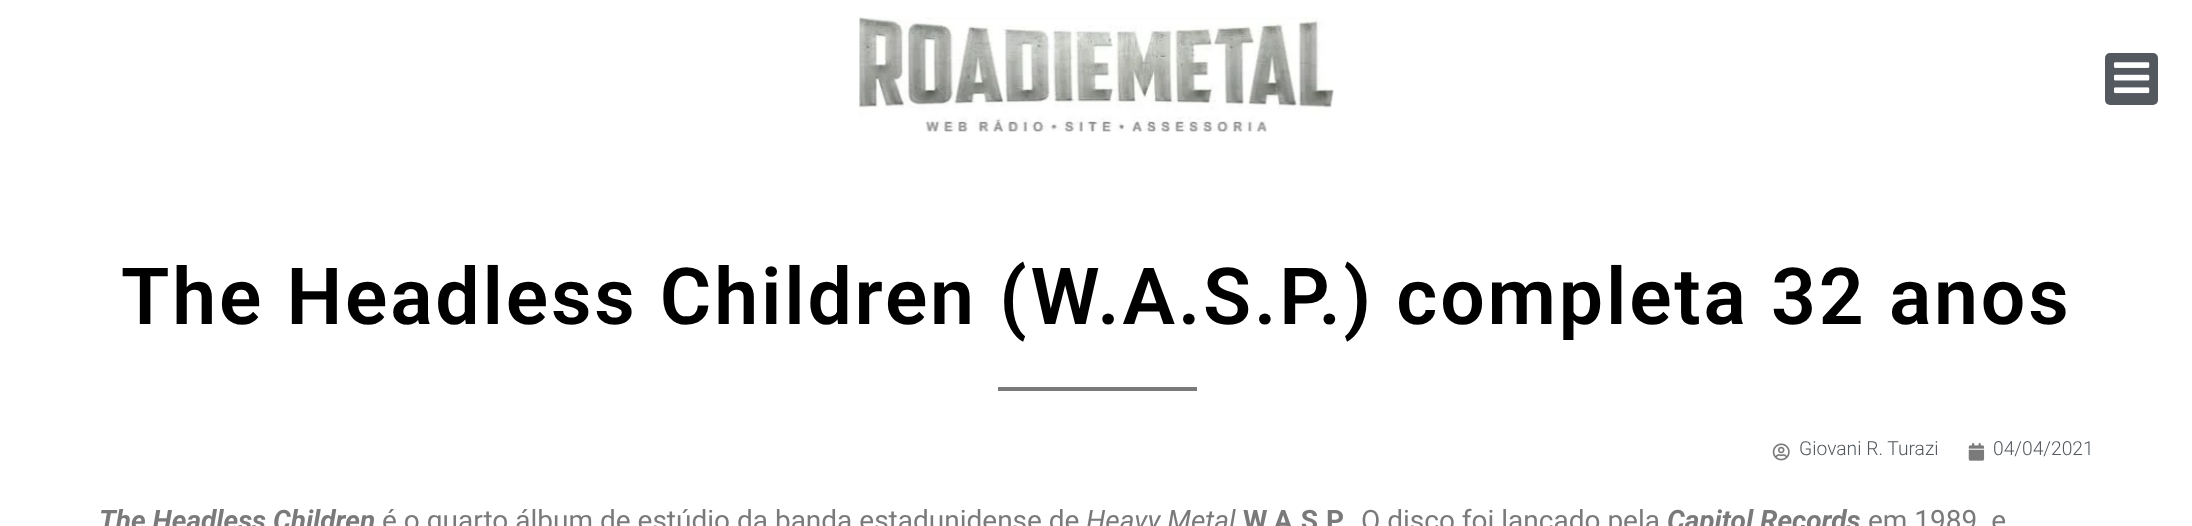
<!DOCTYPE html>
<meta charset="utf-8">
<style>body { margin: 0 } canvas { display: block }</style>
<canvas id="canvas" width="2192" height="526"></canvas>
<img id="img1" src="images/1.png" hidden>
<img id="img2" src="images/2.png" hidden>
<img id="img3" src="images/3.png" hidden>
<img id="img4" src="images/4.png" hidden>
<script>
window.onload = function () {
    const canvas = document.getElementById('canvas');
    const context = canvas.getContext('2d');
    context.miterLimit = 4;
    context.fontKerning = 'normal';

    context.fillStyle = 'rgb(255, 255, 255)';
    context.fillRect(0, 0, 2192, 526);
    context.drawImage(document.getElementById('img1'), 859, 17, 475, 115);
    context.fillStyle = 'rgb(84, 89, 95)';
    context.beginPath();
    context.roundRect(2105, 53, 53, 52, 5);
    context.fill();
    context.drawImage(document.getElementById('img2'), 2114, 62, 36, 32);
    context.fillStyle = 'rgb(122, 122, 122)';
    context.fillRect(998, 387, 199, 4);
    context.drawImage(document.getElementById('img3'), 1772, 443, 18, 18);
    context.drawImage(document.getElementById('img4'), 1968, 443, 17, 18);
    context.letterSpacing = '2.8px';
    context.font = '600 78.75px Roboto';
    context.fillStyle = 'rgb(0, 0, 0)';
    context.fillText('The Headless Children (W.A.S.P.) completa 32 anos', 121, 324);
    context.letterSpacing = '0px';
    context.font = '300 19.25px Roboto';
    context.fillStyle = 'rgb(84, 89, 95)';
    context.fillText('Giovani R. Turazi', 1799, 455);
    context.fillText('04/04/2021', 1993, 455);
    context.font = 'italic bold 28px Roboto';
    context.fillStyle = 'rgb(122, 122, 122)';
    context.fillText('The Headless Children', 99, 530);
    context.font = '28px Roboto';
    context.fillText('é o quarto álbum de estúdio da banda estadunidense de', 382, 530);
    context.font = 'italic 28px Roboto';
    context.fillText('Heavy Metal', 1086, 530);
    context.font = 'bold 28px Roboto';
    context.fillText('W.A.S.P.', 1243, 530);
    context.font = '28px Roboto';
    context.fillText('O disco foi lançado pela', 1361, 530);
    context.font = 'italic bold 28px Roboto';
    context.fillText('Capitol Records', 1667, 530);
    context.font = '28px Roboto';
    context.fillText('em 1989  e', 1868, 530);
};
</script>
